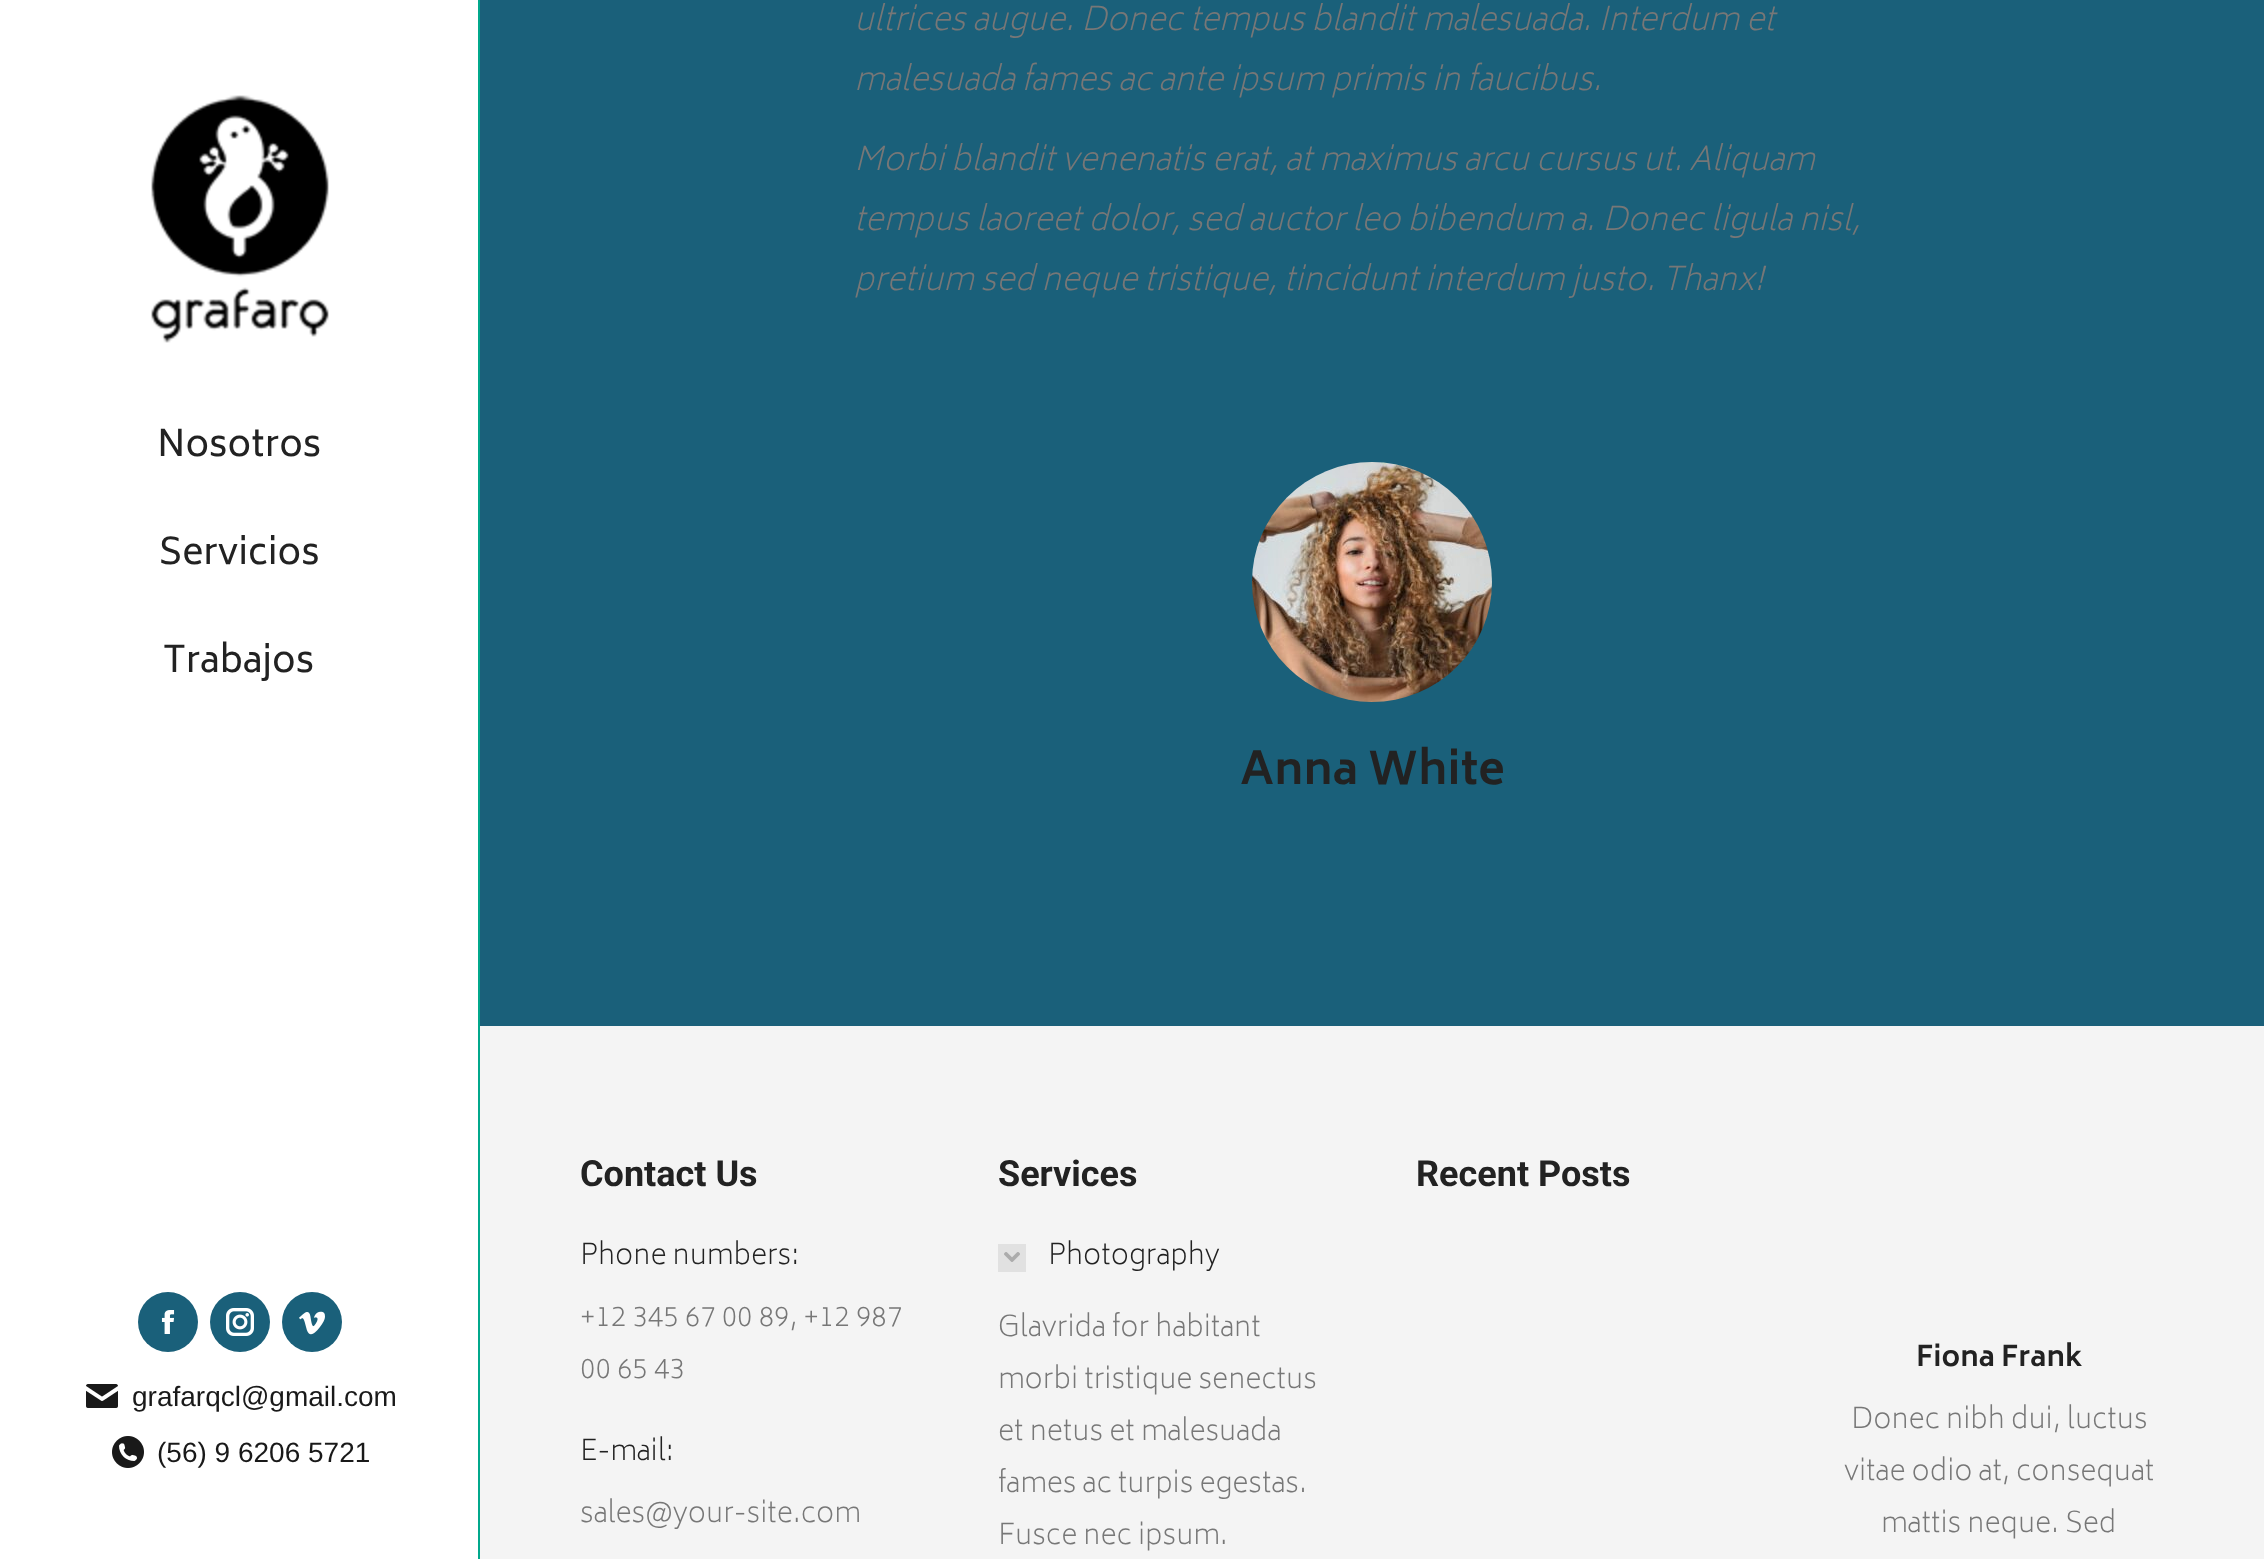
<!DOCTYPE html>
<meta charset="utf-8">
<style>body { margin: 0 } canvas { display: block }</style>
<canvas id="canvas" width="2264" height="1559"></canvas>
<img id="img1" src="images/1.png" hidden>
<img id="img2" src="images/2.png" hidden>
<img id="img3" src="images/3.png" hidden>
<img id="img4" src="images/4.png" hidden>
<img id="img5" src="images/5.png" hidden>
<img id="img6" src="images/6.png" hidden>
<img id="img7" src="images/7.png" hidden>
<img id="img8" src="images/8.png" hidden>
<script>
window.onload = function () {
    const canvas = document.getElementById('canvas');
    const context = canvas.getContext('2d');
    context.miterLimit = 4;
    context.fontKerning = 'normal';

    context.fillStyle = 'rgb(26, 96, 122)';
    context.fillRect(0, 0, 2264, 1559);
    context.fillStyle = 'rgb(255, 255, 255)';
    context.fillRect(0, 0, 478, 1559);
    context.fillStyle = 'rgb(1, 168, 140)';
    context.fillRect(478, 0, 2, 1559);
    context.drawImage(document.getElementById('img1'), 151, 95, 178, 248);
    context.fillStyle = 'rgb(26, 96, 122)';
    context.beginPath();
    context.arc(168, 1322, 30, 0, 2 * Math.PI);
    context.fill();
    context.drawImage(document.getElementById('img2'), 161, 1310, 14, 24);
    context.beginPath();
    context.arc(240, 1322, 30, 0, 2 * Math.PI);
    context.fill();
    context.drawImage(document.getElementById('img3'), 226, 1308, 28, 28);
    context.beginPath();
    context.arc(312, 1322, 30, 0, 2 * Math.PI);
    context.fill();
    context.drawImage(document.getElementById('img4'), 299, 1311, 26, 24);
    context.drawImage(document.getElementById('img5'), 86, 1384, 32, 24);
    context.drawImage(document.getElementById('img6'), 112, 1436, 32, 32);
    context.drawImage(document.getElementById('img7'), 1252, 462, 240, 240);
    context.fillStyle = 'rgb(244, 244, 244)';
    context.fillRect(480, 1026, 1784, 533);
    context.fillStyle = 'rgb(225, 225, 225)';
    context.fillRect(998, 1244, 28, 28);
    context.drawImage(document.getElementById('img8'), 1004, 1252, 16, 10);
    context.font = '36px Biryani';
    context.fillStyle = 'rgb(34, 34, 34)';
    context.fillText('Nosotros', 157, 456);
    context.fillText('Servicios', 159, 564);
    context.fillText('Trabajos', 163, 672);
    context.font = '28px Liberation Sans';
    context.fillStyle = 'rgb(25, 25, 25)';
    context.fillText('grafarqcl@gmail.com', 132, 1406);
    context.fillText('(56) 9 6206 5721', 157, 1462);
    context.font = 'italic 200 32px Biryani';
    context.fillStyle = 'rgb(119, 119, 119)';
    context.fillText('ultrices augue. Donec tempus blandit malesuada. Interdum et', 854, 30);
    context.fillText('malesuada fames ac ante ipsum primis in faucibus.', 854, 90);
    context.fillText('Morbi blandit venenatis erat, at maximus arcu cursus ut. Aliquam', 854, 170);
    context.fillText('tempus laoreet dolor, sed auctor leo bibendum a. Donec ligula nisl,', 854, 230);
    context.fillText('pretium sed neque tristique, tincidunt interdum justo. Thanx!', 854, 290);
    context.font = 'bold 44px Biryani';
    context.fillStyle = 'rgb(34, 34, 34)';
    context.fillText('Anna White', 1240, 784);
    context.font = 'bold 36px Roboto';
    context.fillText('Contact Us', 580, 1186);
    context.font = '200 28px Biryani';
    context.fillText('Phone numbers:', 580, 1264);
    context.fillStyle = 'rgb(119, 119, 119)';
    context.fillText('+12 345 67 00 89, +12 987', 580, 1326);
    context.fillText('00 65 43', 580, 1378);
    context.fillStyle = 'rgb(34, 34, 34)';
    context.fillText('E-mail:', 580, 1460);
    context.fillStyle = 'rgb(119, 119, 119)';
    context.fillText('sales@your-site.com', 580, 1522);
    context.font = 'bold 36px Roboto';
    context.fillStyle = 'rgb(34, 34, 34)';
    context.fillText('Services', 998, 1186);
    context.font = '200 28px Biryani';
    context.fillText('Photography', 1048, 1264);
    context.fillStyle = 'rgb(119, 119, 119)';
    context.fillText('Glavrida for habitant', 998, 1336);
    context.fillText('morbi tristique senectus', 998, 1388);
    context.fillText('et netus et malesuada', 998, 1440);
    context.fillText('fames ac turpis egestas.', 998, 1492);
    context.fillText('Fusce nec ipsum.', 998, 1544);
    context.font = 'bold 36px Roboto';
    context.fillStyle = 'rgb(34, 34, 34)';
    context.fillText('Recent Posts', 1416, 1186);
    context.font = 'bold 28px Biryani';
    context.fillText('Fiona Frank', 1916, 1366);
    context.font = '200 28px Biryani';
    context.fillStyle = 'rgb(119, 119, 119)';
    context.fillText('Donec nibh dui, luctus', 1851, 1428);
    context.fillText('vitae odio at, consequat', 1844, 1480);
    context.fillText('mattis neque. Sed', 1881, 1532);
};
</script>
